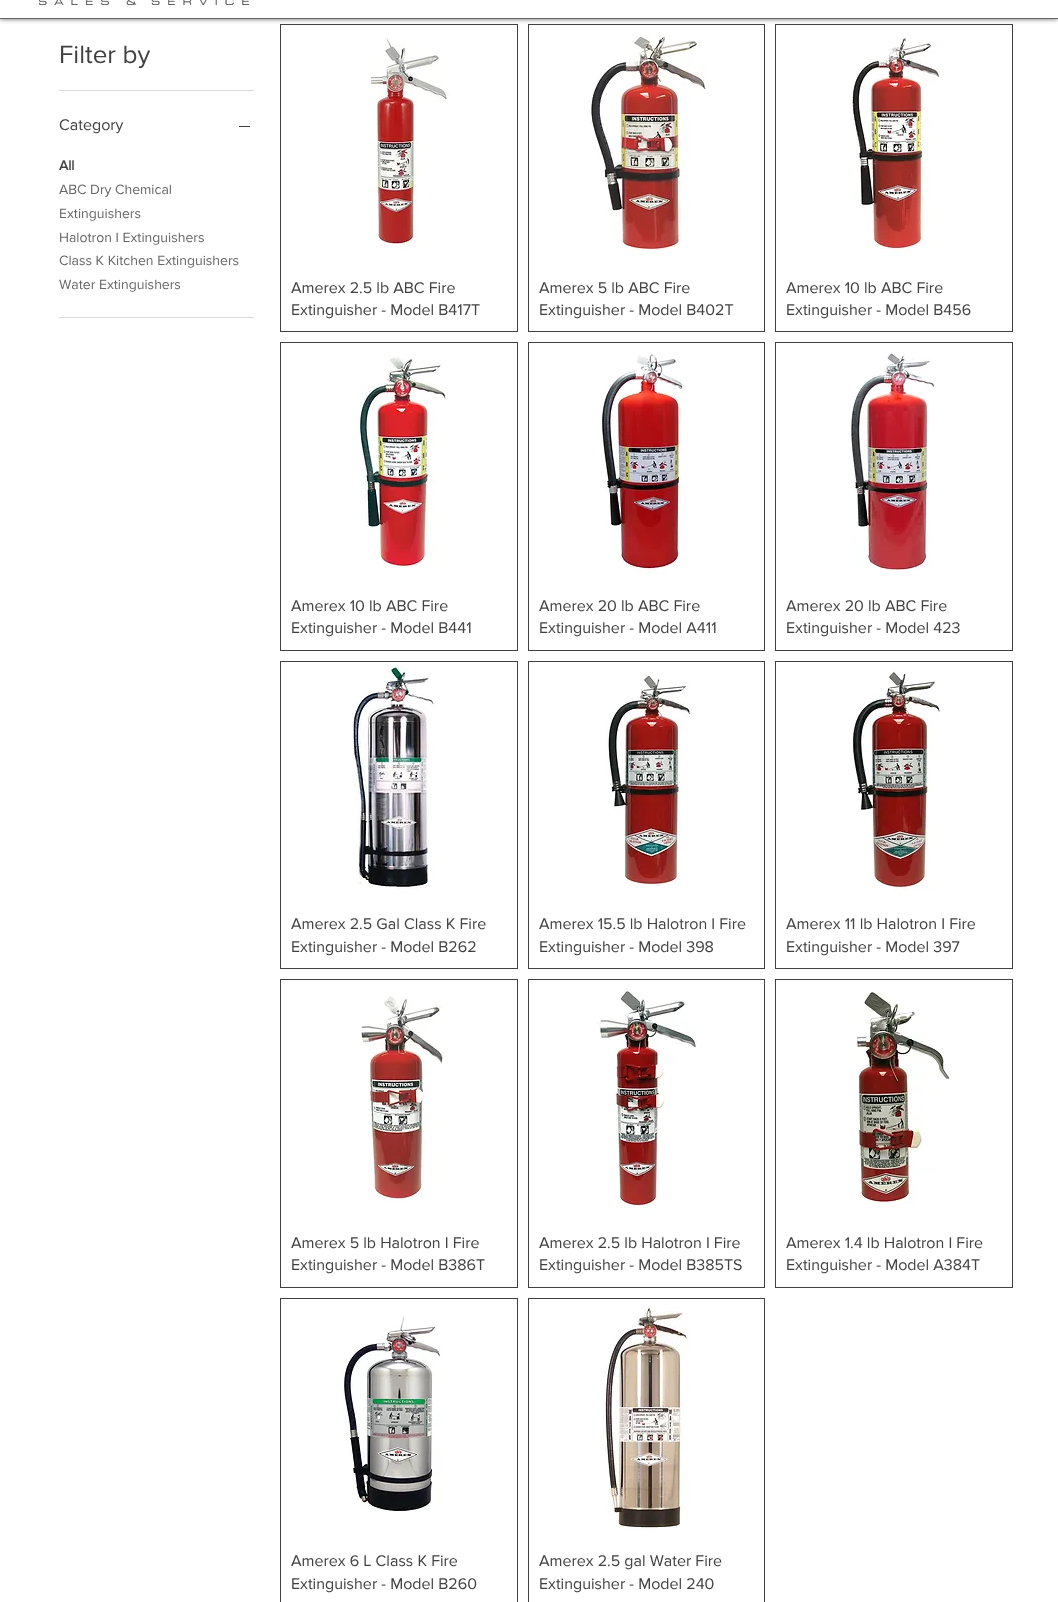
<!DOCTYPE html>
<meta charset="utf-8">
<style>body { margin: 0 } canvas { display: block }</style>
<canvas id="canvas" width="1058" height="1602"></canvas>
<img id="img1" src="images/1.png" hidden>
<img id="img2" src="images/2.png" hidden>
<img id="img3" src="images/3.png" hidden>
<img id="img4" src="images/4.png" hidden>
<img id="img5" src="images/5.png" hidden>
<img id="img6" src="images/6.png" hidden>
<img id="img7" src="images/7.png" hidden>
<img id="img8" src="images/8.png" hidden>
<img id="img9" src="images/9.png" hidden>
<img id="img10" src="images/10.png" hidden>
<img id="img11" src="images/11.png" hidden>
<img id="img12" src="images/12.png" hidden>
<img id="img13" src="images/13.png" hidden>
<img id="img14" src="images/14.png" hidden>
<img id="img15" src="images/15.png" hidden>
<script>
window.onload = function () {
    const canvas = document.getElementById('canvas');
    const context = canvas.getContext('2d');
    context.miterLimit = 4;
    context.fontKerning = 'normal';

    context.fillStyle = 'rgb(255, 255, 255)';
    context.fillRect(0, 0, 1058, 1602);
    context.save();
    context.beginPath();
    context.rect(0, 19, 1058, 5);
    context.clip();
    context.fillStyle = 'rgba(0, 0, 0, 0.6)';
    context.filter = 'blur(2.5px)';
    context.beginPath();
    context.rect(0, -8, 1058, 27);
    context.fill();
    context.filter = 'none';
    context.restore();
    context.fillStyle = 'rgb(102, 102, 102)';
    context.fillRect(0, 18, 1058, 1);
    context.drawImage(document.getElementById('img1'), 39, 0, 210, 5);
    context.fillStyle = 'rgb(217, 217, 217)';
    context.fillRect(59, 90, 195, 1);
    context.fillRect(59, 317, 195, 1);
    context.fillStyle = 'rgb(65, 65, 65)';
    context.fillRect(239, 126, 11, 1);
    context.strokeStyle = 'rgb(65, 65, 65)';
    context.strokeRect(280.5, 24.5, 237, 307);
    context.drawImage(document.getElementById('img2'), 369, 37, 80, 212);
    context.strokeRect(528.5, 24.5, 236, 307);
    context.drawImage(document.getElementById('img3'), 589, 36, 120, 214);
    context.strokeRect(775.5, 24.5, 237, 307);
    context.drawImage(document.getElementById('img4'), 852, 37, 88, 213);
    context.strokeRect(280.5, 342.5, 237, 308);
    context.drawImage(document.getElementById('img5'), 357, 355, 92, 212);
    context.strokeRect(528.5, 342.5, 236, 308);
    context.drawImage(document.getElementById('img6'), 601, 352, 84, 223);
    context.strokeRect(775.5, 342.5, 237, 308);
    context.drawImage(document.getElementById('img7'), 848, 351, 87, 220);
    context.strokeRect(280.5, 661.5, 237, 307);
    context.drawImage(document.getElementById('img8'), 353, 666, 84, 224);
    context.strokeRect(528.5, 661.5, 236, 307);
    context.drawImage(document.getElementById('img9'), 605, 674, 87, 212);
    context.strokeRect(775.5, 661.5, 237, 307);
    context.drawImage(document.getElementById('img10'), 850, 670, 90, 220);
    context.strokeRect(280.5, 979.5, 237, 308);
    context.drawImage(document.getElementById('img11'), 361, 996, 84, 207);
    context.strokeRect(528.5, 979.5, 236, 308);
    context.drawImage(document.getElementById('img12'), 597, 988, 100, 222);
    context.strokeRect(775.5, 979.5, 237, 308);
    context.drawImage(document.getElementById('img13'), 855, 992, 96, 212);
    context.strokeRect(280.5, 1298.5, 237, 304);
    context.drawImage(document.getElementById('img14'), 341, 1315, 100, 196);
    context.strokeRect(528.5, 1298.5, 236, 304);
    context.drawImage(document.getElementById('img15'), 603, 1307, 86, 223);
    context.font = '26px "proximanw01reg"';
    context.fillText('Filter by', 59, 63);
    context.font = '16px "proximanw01reg"';
    context.fillText('Category', 59, 130);
    context.font = 'bold 14px "proximanw01reg"';
    context.fillText('All', 59, 170);
    context.font = '14px "proximanw01reg"';
    context.fillStyle = 'rgb(103, 103, 103)';
    context.fillText('ABC Dry Chemical', 59, 194);
    context.fillText('Extinguishers', 59, 218);
    context.fillText('Halotron I Extinguishers', 59, 242);
    context.fillText('Class K Kitchen Extinguishers', 59, 265);
    context.fillText('Water Extinguishers', 59, 289);
    context.font = '16px "proximanw01reg"';
    context.fillStyle = 'rgb(65, 65, 65)';
    context.fillText('Amerex 2.5 lb ABC Fire', 291, 293);
    context.fillText('Extinguisher - Model B417T', 291, 315);
    context.fillText('Amerex 5 lb ABC Fire', 539, 293);
    context.fillText('Extinguisher - Model B402T', 539, 315);
    context.fillText('Amerex 10 lb ABC Fire', 786, 293);
    context.fillText('Extinguisher - Model B456', 786, 315);
    context.fillText('Amerex 10 lb ABC Fire', 291, 611);
    context.fillText('Extinguisher - Model B441', 291, 633);
    context.fillText('Amerex 20 lb ABC Fire', 539, 611);
    context.fillText('Extinguisher - Model A411', 539, 633);
    context.fillText('Amerex 20 lb ABC Fire', 786, 611);
    context.fillText('Extinguisher - Model 423', 786, 633);
    context.fillText('Amerex 2.5 Gal Class K Fire', 291, 929);
    context.fillText('Extinguisher - Model B262', 291, 952);
    context.fillText('Amerex 15.5 lb Halotron I Fire', 539, 929);
    context.fillText('Extinguisher - Model 398', 539, 952);
    context.fillText('Amerex 11 lb Halotron I Fire', 786, 929);
    context.fillText('Extinguisher - Model 397', 786, 952);
    context.fillText('Amerex 5 lb Halotron I Fire', 291, 1248);
    context.fillText('Extinguisher - Model B386T', 291, 1270);
    context.fillText('Amerex 2.5 lb Halotron I Fire', 539, 1248);
    context.fillText('Extinguisher - Model B385TS', 539, 1270);
    context.fillText('Amerex 1.4 lb Halotron I Fire', 786, 1248);
    context.fillText('Extinguisher - Model A384T', 786, 1270);
    context.fillText('Amerex 6 L Class K Fire', 291, 1566);
    context.fillText('Extinguisher - Model B260', 291, 1589);
    context.fillText('Amerex 2.5 gal Water Fire', 539, 1566);
    context.fillText('Extinguisher - Model 240', 539, 1589);
};
</script>
